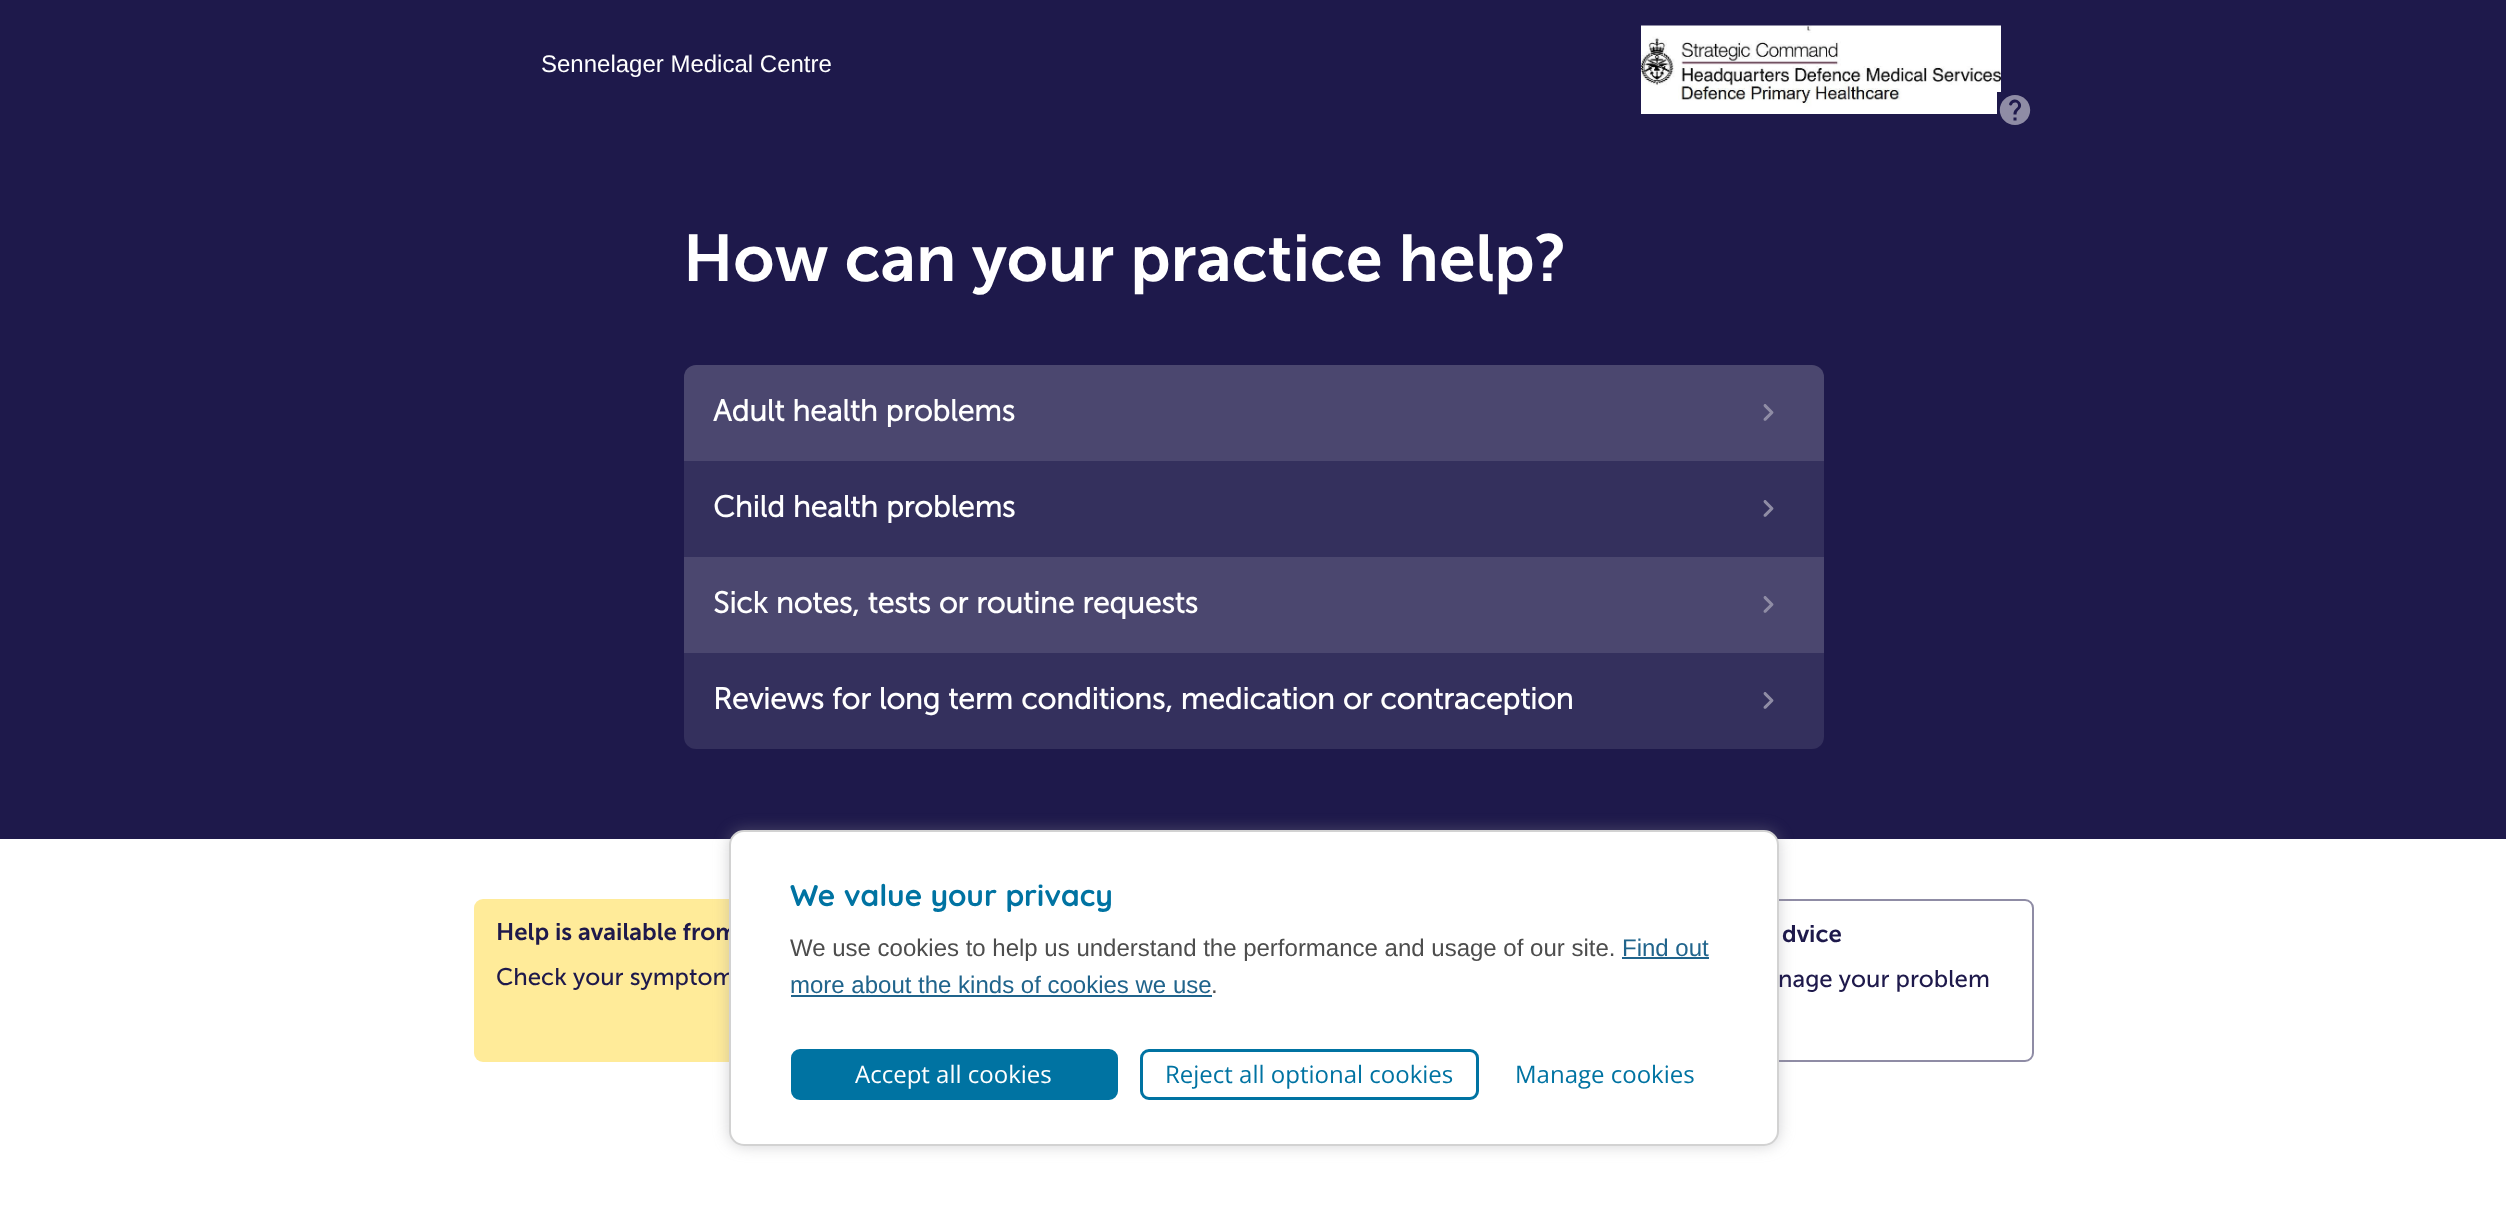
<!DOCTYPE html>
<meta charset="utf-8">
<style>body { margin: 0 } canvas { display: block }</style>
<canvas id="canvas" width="2506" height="1205"></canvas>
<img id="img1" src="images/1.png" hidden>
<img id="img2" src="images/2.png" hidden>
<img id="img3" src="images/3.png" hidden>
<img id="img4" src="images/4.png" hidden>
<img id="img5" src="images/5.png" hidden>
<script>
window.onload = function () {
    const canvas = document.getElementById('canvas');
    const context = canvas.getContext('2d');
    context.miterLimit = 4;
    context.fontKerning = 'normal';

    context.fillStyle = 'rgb(30, 25, 75)';
    context.fillRect(0, 0, 2506, 1205);
    context.drawImage(document.getElementById('img1'), 1641, 25, 360, 89);
    context.fillRect(1997, 92, 4, 22);
    context.drawImage(document.getElementById('img2'), 1999, 95, 32, 30);
    context.fillStyle = 'rgb(75, 71, 111)';
    context.beginPath();
    context.roundRect(684, 365, 1140, 96, [12, 12, 0, 0]);
    context.fill();
    context.drawImage(document.getElementById('img3'), 1763, 404, 11, 17);
    context.fillStyle = 'rgb(52, 48, 93)';
    context.fillRect(684, 461, 1140, 96);
    context.drawImage(document.getElementById('img4'), 1763, 500, 11, 17);
    context.fillStyle = 'rgb(75, 71, 111)';
    context.fillRect(684, 557, 1140, 96);
    context.drawImage(document.getElementById('img3'), 1763, 596, 11, 17);
    context.fillStyle = 'rgb(52, 48, 93)';
    context.beginPath();
    context.roundRect(684, 653, 1140, 96, [0, 0, 12, 12]);
    context.fill();
    context.drawImage(document.getElementById('img5'), 1763, 692, 11, 17);
    context.fillStyle = 'rgb(255, 255, 255)';
    context.fillRect(0, 839, 2506, 366);
    context.fillStyle = 'rgb(255, 235, 153)';
    context.beginPath();
    context.roundRect(474, 899, 492, 163, 9);
    context.fill();
    context.beginPath();
    context.roundRect(1539, 900, 494, 161, 8);
    context.strokeStyle = 'rgb(143, 140, 165)';
    context.lineWidth = 2;
    context.stroke();
    context.fillStyle = 'rgba(142, 142, 147, 0.4)';
    context.filter = 'blur(7.5px)';
    context.beginPath();
    context.roundRect(729, 830, 1050, 316, 15);
    context.fill();
    context.filter = 'none';
    context.font = '24px Liberation Sans';
    context.fillStyle = 'rgb(255, 255, 255)';
    context.fillText('Sennelager Medical Centre', 541, 72);
    context.font = '600 66px Museo Sans';
    context.fillText('How can your practice help?', 683, 281);
    context.font = 'bold 30px Museo Sans';
    context.fillText('Adult health problems', 713, 421);
    context.fillText('Child health problems', 713, 517);
    context.fillText('Sick notes, tests or routine requests', 713, 613);
    context.fillText('Reviews for long term conditions, medication or contraception', 713, 709);
    context.font = '600 24px Museo Sans';
    context.fillStyle = 'rgb(30, 25, 75)';
    context.fillText('Help is available from', 496, 940);
    context.font = '24px Museo Sans';
    context.fillText('Check your symptom', 496, 985);
    context.font = '600 24px Museo Sans';
    context.fillText('dvice', 1782, 942);
    context.font = '24px Museo Sans';
    context.fillText('nage your problem', 1778, 987);
    context.fillStyle = 'rgb(255, 255, 255)';
    context.beginPath();
    context.roundRect(730, 831, 1048, 314, 14);
    context.fill();
    context.strokeStyle = 'rgb(210, 210, 210)';
    context.stroke();
    context.font = 'bold 30px Quicksand';
    context.fillStyle = 'rgb(0, 115, 162)';
    context.fillText('We value your privacy', 790, 906);
    context.font = '24px Liberation Sans';
    context.fillStyle = 'rgb(77, 77, 77)';
    context.fillText('We use cookies to help us understand the performance and usage of our site.', 790, 956);
    context.fillStyle = 'rgb(32, 100, 140)';
    context.fillText('Find out', 1622, 956);
    context.fillRect(1622, 957, 87, 2);
    context.fillText('more about the kinds of cookies we use', 790, 993);
    context.fillRect(791, 995, 421, 2);
    context.fillStyle = 'rgb(77, 77, 77)';
    context.fillText('.', 1211, 993);
    context.fillStyle = 'rgb(0, 115, 162)';
    context.beginPath();
    context.roundRect(792.5, 1050.5, 324, 48, 7.5);
    context.fill();
    context.strokeStyle = 'rgb(0, 115, 162)';
    context.lineWidth = 3;
    context.stroke();
    context.font = '24px Open Sans';
    context.fillStyle = 'rgb(255, 255, 255)';
    context.fillText('Accept all cookies', 855, 1083);
    context.beginPath();
    context.roundRect(1141.5, 1050.5, 336, 48, 7.5);
    context.stroke();
    context.fillStyle = 'rgb(0, 115, 162)';
    context.fillText('Reject all optional cookies', 1165, 1083);
    context.fillText('Manage cookies', 1515, 1083);
};
</script>
